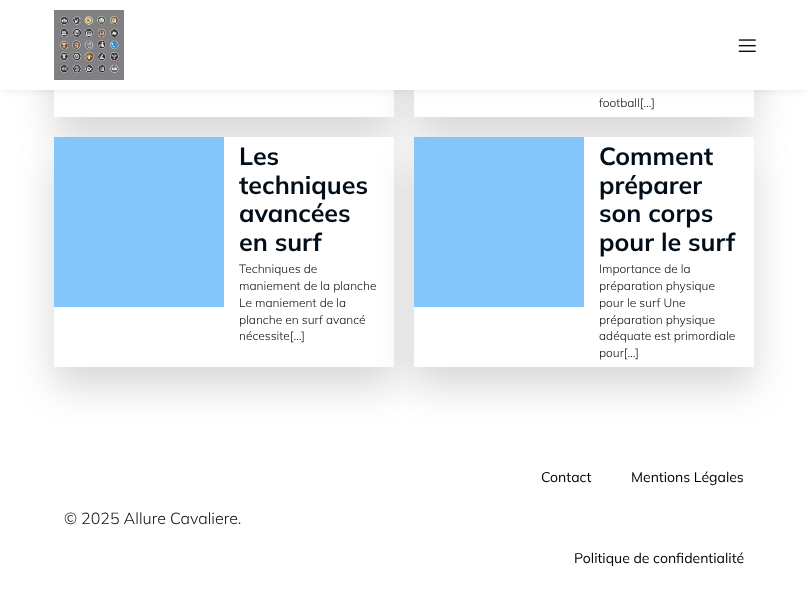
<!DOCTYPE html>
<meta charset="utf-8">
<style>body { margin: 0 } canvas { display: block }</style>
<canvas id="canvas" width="808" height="599"></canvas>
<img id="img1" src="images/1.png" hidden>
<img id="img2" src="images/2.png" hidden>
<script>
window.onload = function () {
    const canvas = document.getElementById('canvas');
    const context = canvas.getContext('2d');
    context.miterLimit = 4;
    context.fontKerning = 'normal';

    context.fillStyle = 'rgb(255, 255, 255)';
    context.fillRect(0, 0, 808, 599);
    context.save();
    context.beginPath();
    context.moveTo(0, 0);
    context.lineTo(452, 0);
    context.lineTo(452, 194);
    context.lineTo(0, 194);
    context.closePath();
    context.moveTo(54, -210);
    context.lineTo(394, -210);
    context.lineTo(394, 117);
    context.lineTo(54, 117);
    context.closePath();
    context.clip('evenodd');
    context.fillStyle = 'rgba(0, 0, 0, 0.16)';
    context.filter = 'blur(19px)';
    context.beginPath();
    context.rect(54, -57, 340, 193);
    context.fill();
    context.filter = 'none';
    context.restore();
    context.fillStyle = 'rgba(0, 0, 0, 0.16)';
    context.filter = 'blur(19px)';
    context.beginPath();
    context.rect(414, -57, 340, 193);
    context.fill();
    context.filter = 'none';
    context.fillStyle = 'rgb(255, 255, 255)';
    context.fillRect(414, 90, 340, 27);
    context.fillStyle = 'rgba(23, 25, 39, 0.1)';
    context.filter = 'blur(5px)';
    context.beginPath();
    context.rect(0, 0, 808, 90);
    context.fill();
    context.filter = 'none';
    context.fillStyle = 'rgb(255, 255, 255)';
    context.fillRect(0, 0, 808, 90);
    context.drawImage(document.getElementById('img1'), 54, 10, 70, 70);
    context.drawImage(document.getElementById('img2'), 738, 39, 18, 13);
    context.fillStyle = 'rgba(0, 0, 0, 0.16)';
    context.filter = 'blur(19px)';
    context.beginPath();
    context.rect(54, 156, 340, 230);
    context.fill();
    context.filter = 'none';
    context.fillStyle = 'rgb(255, 255, 255)';
    context.fillRect(54, 137, 340, 230);
    context.fillStyle = 'rgb(132, 197, 251)';
    context.fillRect(54, 137, 170, 170);
    context.fillStyle = 'rgba(0, 0, 0, 0.16)';
    context.filter = 'blur(19px)';
    context.beginPath();
    context.rect(414, 156, 340, 230);
    context.fill();
    context.filter = 'none';
    context.fillStyle = 'rgb(255, 255, 255)';
    context.fillRect(414, 137, 340, 230);
    context.fillStyle = 'rgb(132, 197, 251)';
    context.fillRect(414, 137, 170, 170);
    context.font = '300 12px Mulish';
    context.fillStyle = 'rgb(9, 17, 24)';
    context.fillText('football[…]', 599, 107);
    context.font = 'bold 25px Mulish';
    context.fillStyle = 'rgb(1, 14, 25)';
    context.fillText('Les', 239, 165);
    context.fillText('techniques', 239, 194);
    context.fillText('avancées', 239, 222);
    context.fillText('en surf', 239, 251);
    context.font = '300 12px Mulish';
    context.fillStyle = 'rgb(9, 17, 24)';
    context.fillText('Techniques de', 239, 273);
    context.fillText('maniement de la planche', 239, 290);
    context.fillText('Le maniement de la', 239, 307);
    context.fillText('planche en surf avancé', 239, 324);
    context.fillText('nécessite[…]', 239, 340);
    context.font = 'bold 25px Mulish';
    context.fillStyle = 'rgb(1, 14, 25)';
    context.fillText('Comment', 599, 165);
    context.fillText('préparer', 599, 194);
    context.fillText('son corps', 599, 222);
    context.fillText('pour le surf', 599, 251);
    context.font = '300 12px Mulish';
    context.fillStyle = 'rgb(9, 17, 24)';
    context.fillText('Importance de la', 599, 273);
    context.fillText('préparation physique', 599, 290);
    context.fillText('pour le surf Une', 599, 307);
    context.fillText('préparation physique', 599, 324);
    context.fillText('adéquate est primordiale', 599, 340);
    context.fillText('pour[…]', 599, 357);
    context.font = '300 16px Mulish';
    context.fillText('© 2025 Allure Cavaliere.', 64, 524);
    context.font = '14px Mulish';
    context.fillStyle = 'rgb(0, 0, 0)';
    context.fillText('Contact', 541, 482);
    context.fillText('Mentions Légales', 631, 482);
    context.fillText('Politique de confidentialité', 574, 563);
};
</script>
